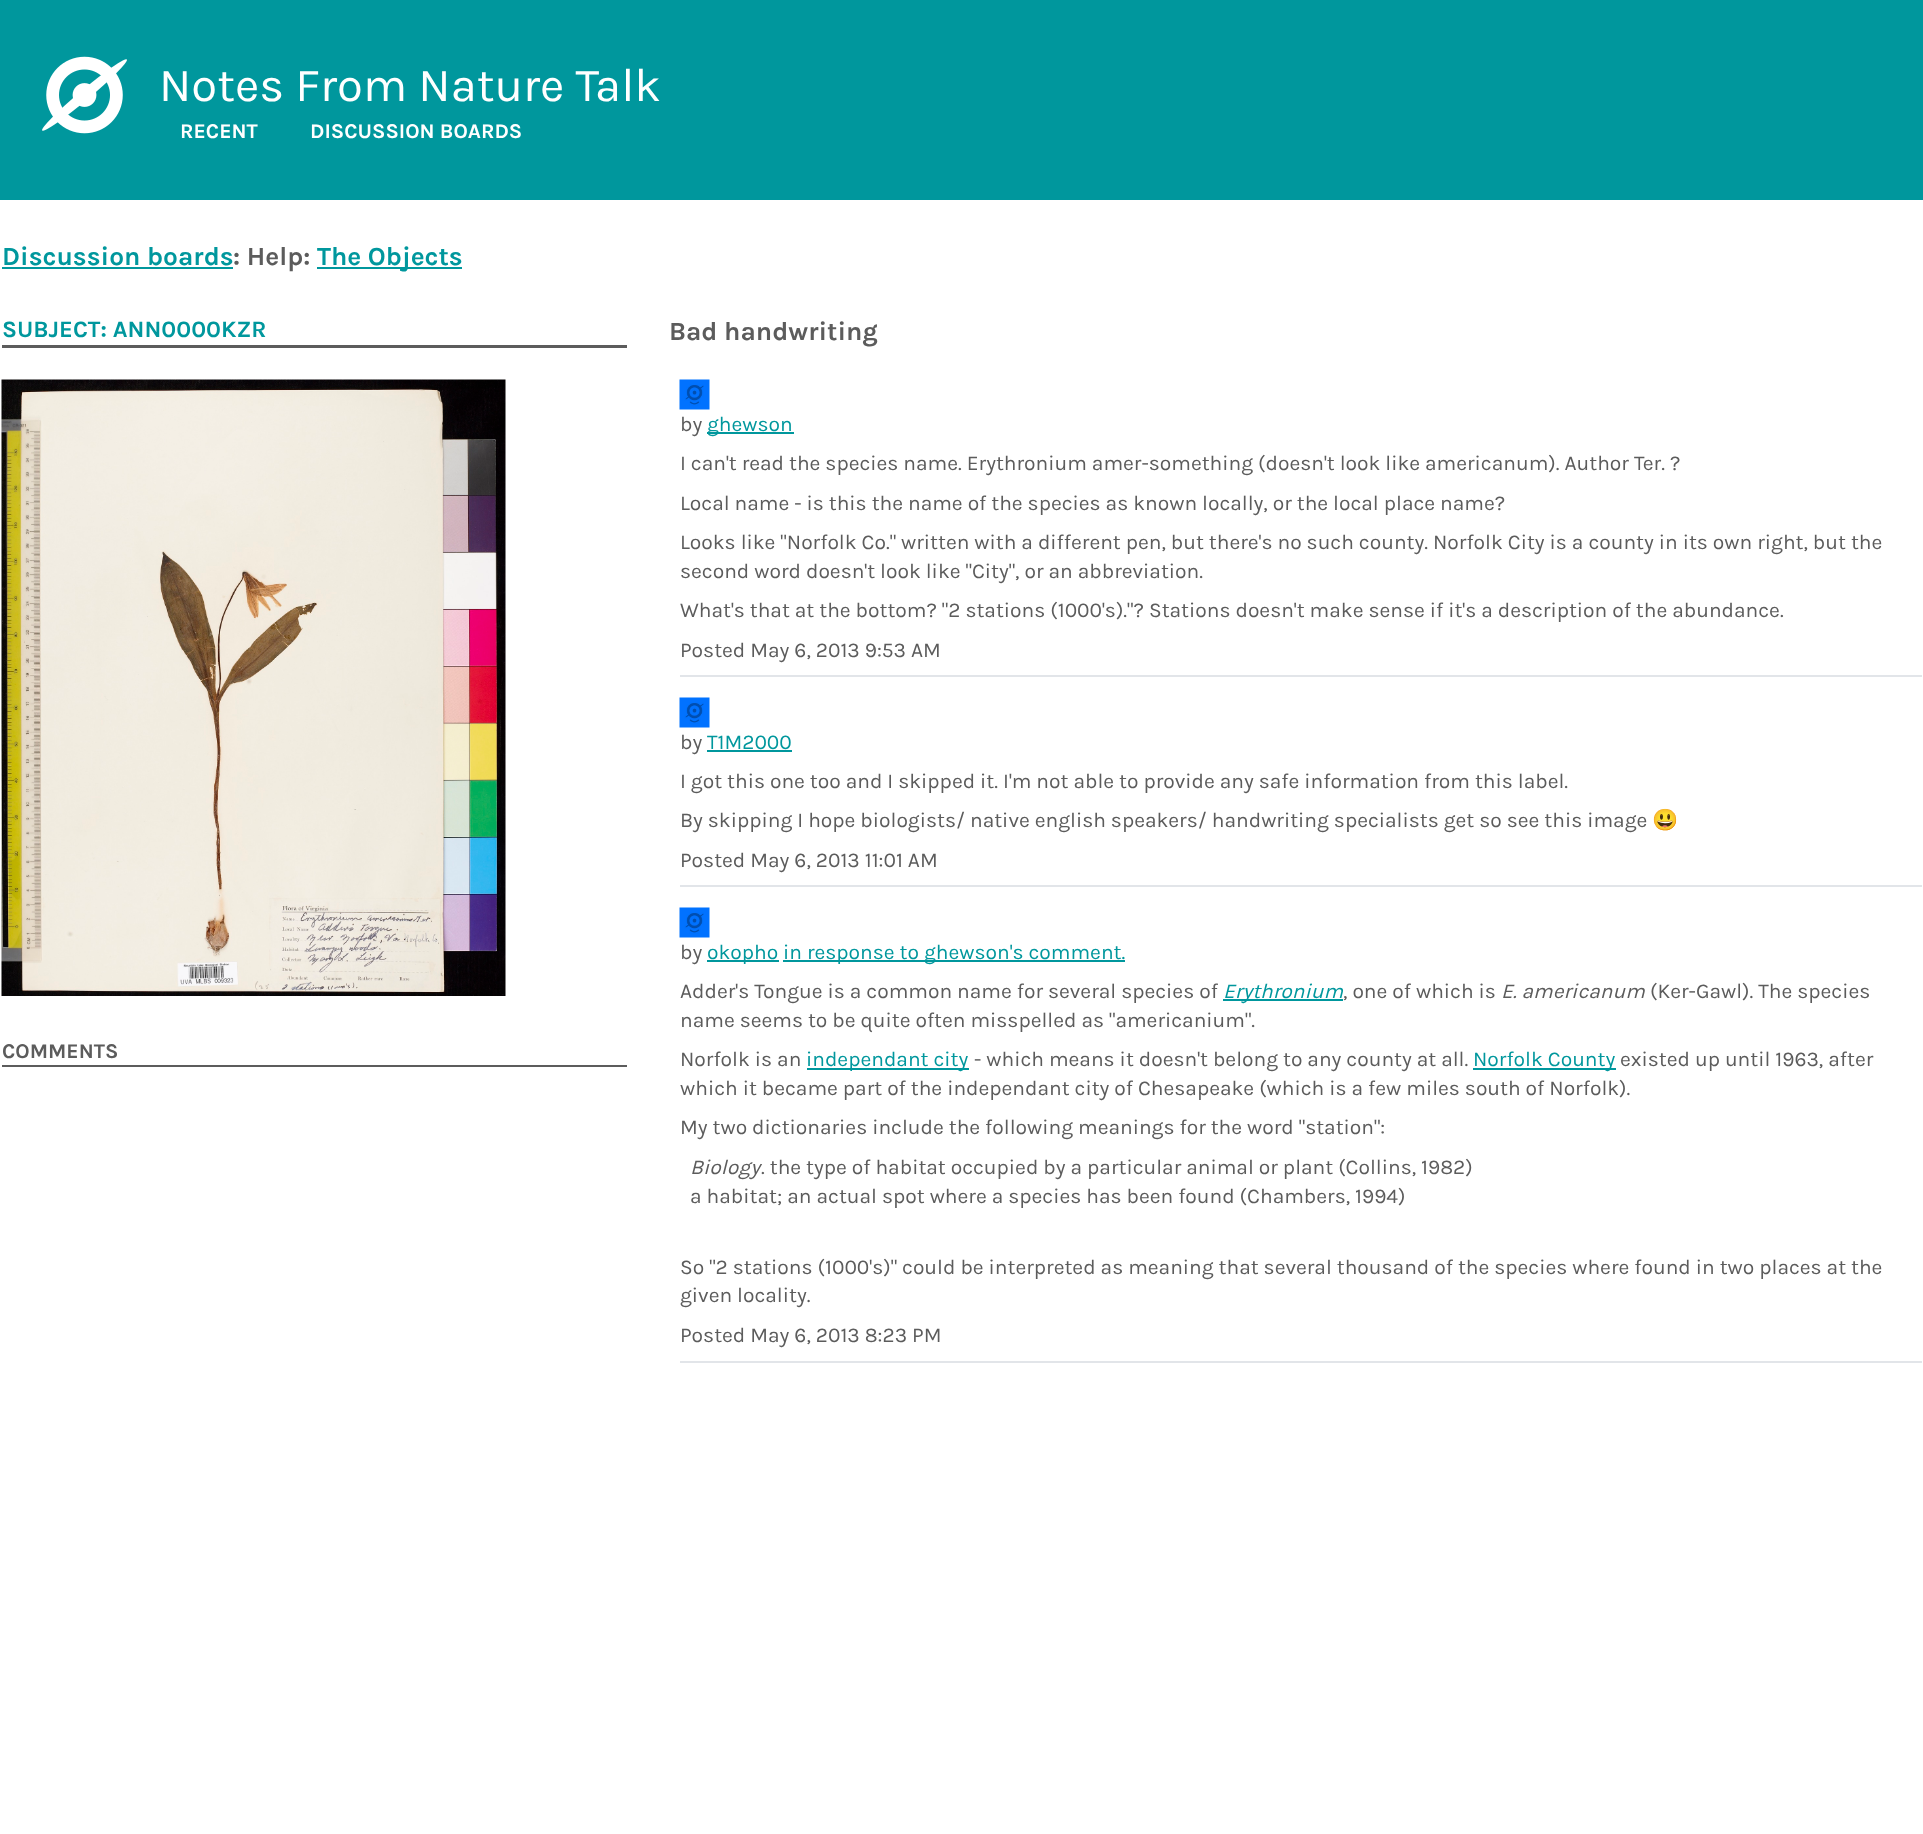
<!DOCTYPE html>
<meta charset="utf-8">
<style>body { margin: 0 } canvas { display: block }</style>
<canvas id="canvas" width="1923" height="1834"></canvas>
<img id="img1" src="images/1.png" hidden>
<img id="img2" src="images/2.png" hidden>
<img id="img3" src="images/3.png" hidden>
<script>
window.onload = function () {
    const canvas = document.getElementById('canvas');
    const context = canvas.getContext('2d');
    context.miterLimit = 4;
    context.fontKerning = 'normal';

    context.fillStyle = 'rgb(255, 255, 255)';
    context.fillRect(0, 0, 1923, 1834);
    context.fillStyle = 'rgb(0, 151, 157)';
    context.fillRect(0, 0, 1923, 200);
    context.drawImage(document.getElementById('img1'), 42, 56, 85, 78);
    context.fillRect(2, 267, 231, 2);
    context.fillRect(317, 267, 145, 2);
    context.fillStyle = 'rgb(92, 92, 92)';
    context.fillRect(2, 345, 625, 3);
    context.drawImage(document.getElementById('img2'), 1, 379, 505, 617);
    context.fillRect(2, 1065, 625, 2);
    context.fillStyle = 'rgb(226, 229, 233)';
    context.fillRect(680, 675, 1242, 2);
    context.drawImage(document.getElementById('img3'), 679, 379, 31, 31);
    context.fillStyle = 'rgb(0, 151, 157)';
    context.fillRect(707, 432, 87, 2);
    context.fillStyle = 'rgb(226, 229, 233)';
    context.fillRect(680, 885, 1242, 2);
    context.drawImage(document.getElementById('img3'), 679, 697, 31, 31);
    context.fillStyle = 'rgb(0, 151, 157)';
    context.fillRect(707, 750, 85, 2);
    context.fillStyle = 'rgb(226, 229, 233)';
    context.fillRect(680, 1361, 1242, 2);
    context.drawImage(document.getElementById('img3'), 679, 907, 31, 31);
    context.fillStyle = 'rgb(0, 151, 157)';
    context.fillRect(707, 960, 72, 2);
    context.fillRect(783, 960, 342, 2);
    context.fillRect(1223, 999, 120, 2);
    context.fillRect(807, 1068, 162, 2);
    context.fillRect(1473, 1068, 143, 2);
    context.font = '47.25px Karla';
    context.fillStyle = 'rgb(255, 255, 255)';
    context.fillText('Notes From Nature Talk', 159, 101);
    context.font = 'bold 21px Karla';
    context.fillText('RECENT', 180, 138);
    context.fillText('DISCUSSION BOARDS', 310, 138);
    context.font = 'bold 26.25px Karla';
    context.fillStyle = 'rgb(0, 151, 157)';
    context.fillText('Discussion boards', 2, 265);
    context.fillStyle = 'rgb(92, 92, 92)';
    context.fillText(': Help:', 233, 265);
    context.fillStyle = 'rgb(0, 151, 157)';
    context.fillText('The Objects', 317, 265);
    context.font = 'bold 23.6px Karla';
    context.fillText('SUBJECT: ANN0000KZR', 2, 337);
    context.font = 'bold 21px Karla';
    context.fillStyle = 'rgb(92, 92, 92)';
    context.fillText('COMMENTS', 2, 1058);
    context.font = 'bold 26.25px Karla';
    context.fillText('Bad handwriting', 669, 340);
    context.font = '21px Karla';
    context.fillText('by', 680, 431);
    context.fillStyle = 'rgb(0, 151, 157)';
    context.fillText('ghewson', 707, 431);
    context.fillStyle = 'rgb(92, 92, 92)';
    context.fillText('I can\'t read the species name. Erythronium amer-something (doesn\'t look like americanum). Author Ter. ?', 680, 470);
    context.fillText('Local name - is this the name of the species as known locally, or the local place name?', 680, 510);
    context.fillText('Looks like "Norfolk Co." written with a different pen, but there\'s no such county. Norfolk City is a county in its own right, but the', 680, 549);
    context.fillText('second word doesn\'t look like "City", or an abbreviation.', 680, 578);
    context.fillText('What\'s that at the bottom? "2 stations (1000\'s)."? Stations doesn\'t make sense if it\'s a description of the abundance.', 680, 617);
    context.fillText('Posted May 6, 2013 9:53 AM', 680, 657);
    context.fillText('by', 680, 749);
    context.fillStyle = 'rgb(0, 151, 157)';
    context.fillText('T1M2000', 707, 749);
    context.fillStyle = 'rgb(92, 92, 92)';
    context.fillText('I got this one too and I skipped it. I\'m not able to provide any safe information from this label.', 680, 788);
    context.fillText('By skipping I hope biologists/ native english speakers/ handwriting specialists get so see this image', 680, 827);
    context.font = '21px Noto Color Emoji';
    context.fillText('😃', 1652, 827);
    context.font = '21px Karla';
    context.fillText('Posted May 6, 2013 11:01 AM', 680, 867);
    context.fillText('by', 680, 959);
    context.fillStyle = 'rgb(0, 151, 157)';
    context.fillText('okopho', 707, 959);
    context.fillText('in response to ghewson\'s comment.', 783, 959);
    context.fillStyle = 'rgb(92, 92, 92)';
    context.fillText('Adder\'s Tongue is a common name for several species of', 680, 998);
    context.font = 'italic 21px Karla';
    context.fillStyle = 'rgb(0, 151, 157)';
    context.fillText('Erythronium', 1223, 998);
    context.font = '21px Karla';
    context.fillStyle = 'rgb(92, 92, 92)';
    context.fillText(', one of which is', 1343, 998);
    context.font = 'italic 21px Karla';
    context.fillText('E. americanum', 1501, 998);
    context.font = '21px Karla';
    context.fillText('(Ker-Gawl). The species', 1650, 998);
    context.fillText('name seems to be quite often misspelled as "americanium".', 680, 1027);
    context.fillText('Norfolk is an', 680, 1066);
    context.fillStyle = 'rgb(0, 151, 157)';
    context.fillText('independant city', 806, 1066);
    context.fillStyle = 'rgb(92, 92, 92)';
    context.fillText('- which means it doesn\'t belong to any county at all.', 974, 1066);
    context.fillStyle = 'rgb(0, 151, 157)';
    context.fillText('Norfolk County', 1473, 1066);
    context.fillStyle = 'rgb(92, 92, 92)';
    context.fillText('existed up until 1963, after', 1620, 1066);
    context.fillText('which it became part of the independant city of Chesapeake (which is a few miles south of Norfolk).', 680, 1095);
    context.fillText('My two dictionaries include the following meanings for the word "station":', 680, 1134);
    context.font = 'italic 21px Karla';
    context.fillText('Biology', 690, 1174);
    context.font = '21px Karla';
    context.fillText('. the type of habitat occupied by a particular animal or plant (Collins, 1982)', 761, 1174);
    context.fillText('a habitat; an actual spot where a species has been found (Chambers, 1994)', 690, 1203);
    context.fillText('So "2 stations (1000\'s)" could be interpreted as meaning that several thousand of the species where found in two places at the', 680, 1274);
    context.fillText('given locality.', 680, 1302);
    context.fillText('Posted May 6, 2013 8:23 PM', 680, 1342);
};
</script>
